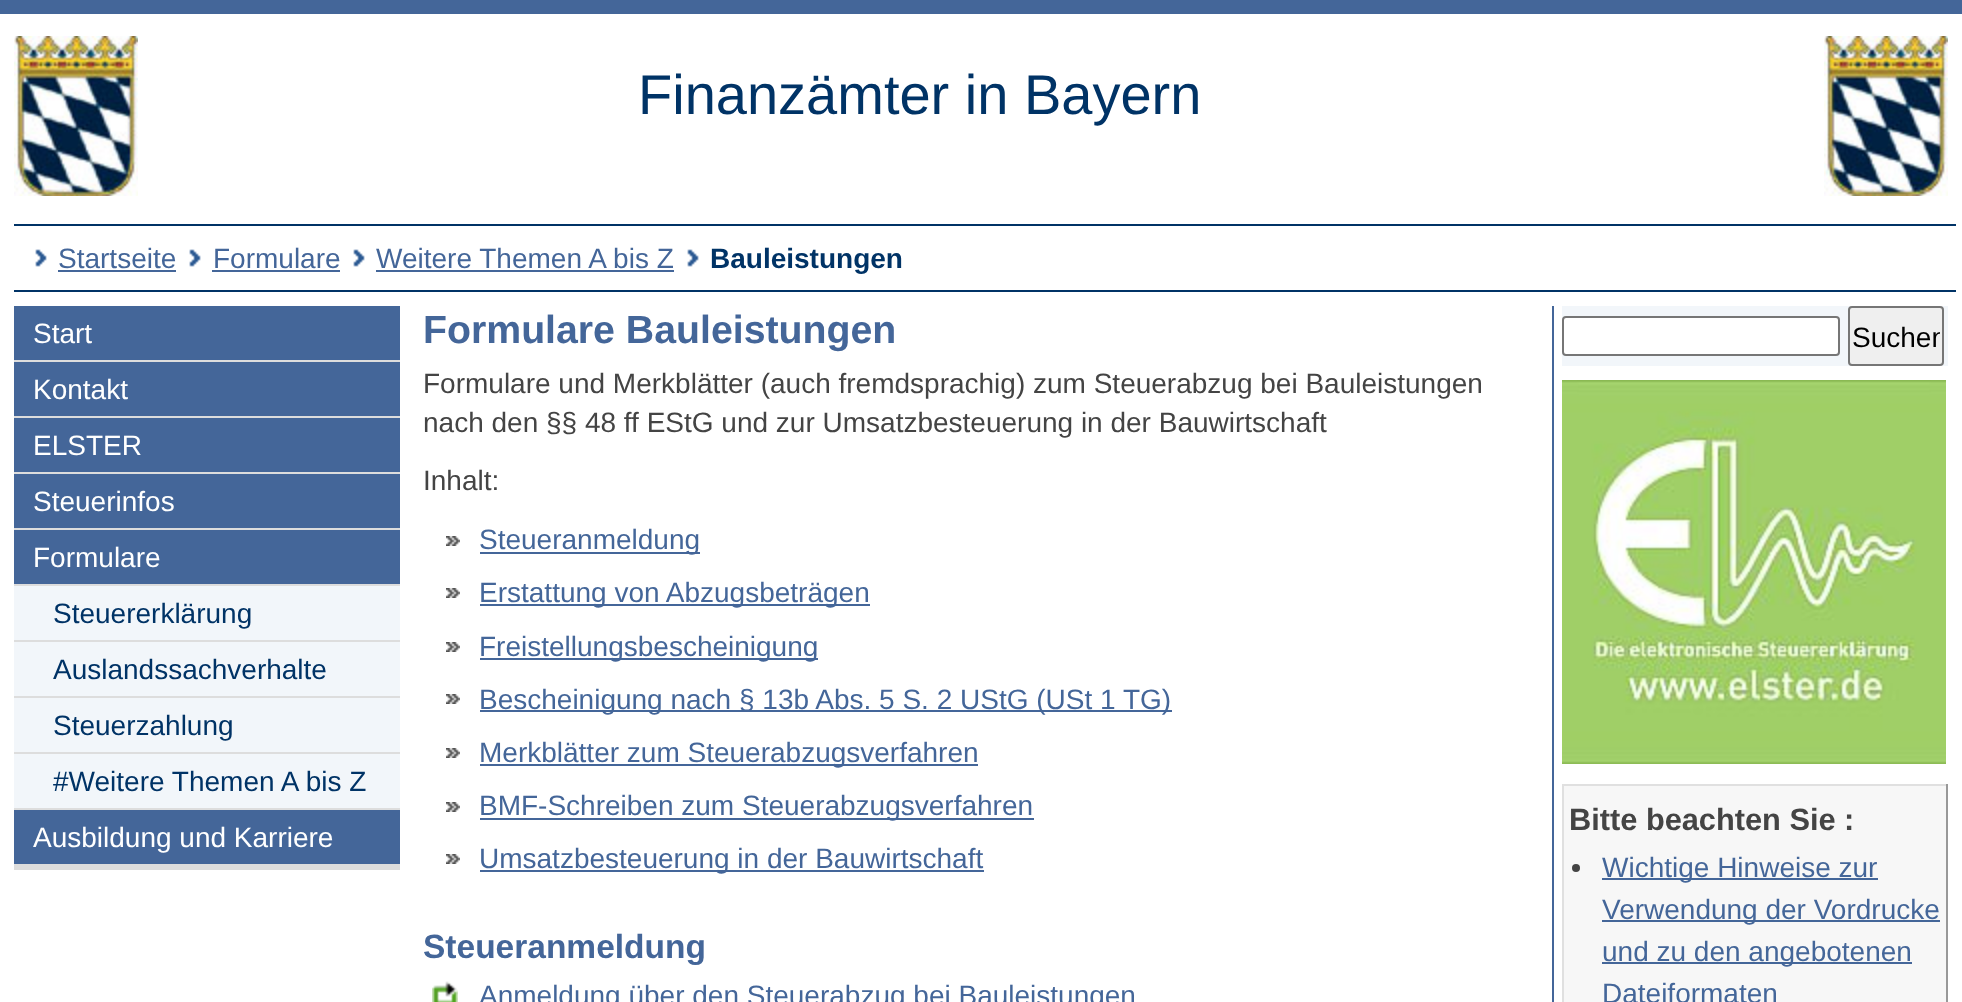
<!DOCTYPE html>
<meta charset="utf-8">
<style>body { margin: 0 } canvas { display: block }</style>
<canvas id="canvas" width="1962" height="1002"></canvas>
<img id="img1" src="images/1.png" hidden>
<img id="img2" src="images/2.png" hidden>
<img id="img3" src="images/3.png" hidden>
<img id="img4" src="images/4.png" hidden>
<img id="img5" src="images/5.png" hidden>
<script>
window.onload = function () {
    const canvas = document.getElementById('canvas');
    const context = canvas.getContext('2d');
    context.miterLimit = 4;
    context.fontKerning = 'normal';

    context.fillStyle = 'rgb(68, 102, 153)';
    context.fillRect(0, 0, 1962, 1002);
    context.fillStyle = 'rgb(255, 255, 255)';
    context.fillRect(0, 14, 1962, 988);
    context.drawImage(document.getElementById('img1'), 14, 36, 124, 160);
    context.drawImage(document.getElementById('img1'), 1824, 36, 124, 160);
    context.fillStyle = 'rgb(0, 51, 102)';
    context.fillRect(14, 224, 1942, 2);
    context.fillRect(14, 290, 1942, 2);
    context.drawImage(document.getElementById('img2'), 35, 249, 12, 18);
    context.fillStyle = 'rgb(68, 102, 153)';
    context.fillRect(58, 270, 118, 2);
    context.drawImage(document.getElementById('img2'), 189, 249, 12, 18);
    context.fillRect(212, 270, 128, 2);
    context.drawImage(document.getElementById('img2'), 353, 249, 12, 18);
    context.fillRect(376, 270, 298, 2);
    context.drawImage(document.getElementById('img2'), 687, 249, 12, 18);
    context.fillStyle = 'rgb(221, 221, 221)';
    context.fillRect(14, 864, 386, 6);
    context.fillStyle = 'rgb(68, 102, 153)';
    context.fillRect(14, 306, 386, 54);
    context.fillStyle = 'rgb(221, 221, 221)';
    context.fillRect(14, 360, 386, 2);
    context.fillStyle = 'rgb(68, 102, 153)';
    context.fillRect(14, 362, 386, 54);
    context.fillStyle = 'rgb(221, 221, 221)';
    context.fillRect(14, 416, 386, 2);
    context.fillStyle = 'rgb(68, 102, 153)';
    context.fillRect(14, 418, 386, 54);
    context.fillStyle = 'rgb(221, 221, 221)';
    context.fillRect(14, 472, 386, 2);
    context.fillStyle = 'rgb(68, 102, 153)';
    context.fillRect(14, 474, 386, 54);
    context.fillStyle = 'rgb(221, 221, 221)';
    context.fillRect(14, 528, 386, 2);
    context.fillStyle = 'rgb(68, 102, 153)';
    context.fillRect(14, 530, 386, 54);
    context.fillStyle = 'rgb(221, 221, 221)';
    context.fillRect(14, 584, 386, 2);
    context.fillStyle = 'rgb(242, 246, 250)';
    context.fillRect(14, 586, 386, 54);
    context.fillStyle = 'rgb(221, 221, 221)';
    context.fillRect(14, 640, 386, 2);
    context.fillStyle = 'rgb(242, 246, 250)';
    context.fillRect(14, 642, 386, 54);
    context.fillStyle = 'rgb(221, 221, 221)';
    context.fillRect(14, 696, 386, 2);
    context.fillStyle = 'rgb(242, 246, 250)';
    context.fillRect(14, 698, 386, 54);
    context.fillStyle = 'rgb(221, 221, 221)';
    context.fillRect(14, 752, 386, 2);
    context.fillStyle = 'rgb(242, 246, 250)';
    context.fillRect(14, 754, 386, 54);
    context.fillStyle = 'rgb(221, 221, 221)';
    context.fillRect(14, 808, 386, 2);
    context.fillStyle = 'rgb(68, 102, 153)';
    context.fillRect(14, 810, 386, 54);
    context.drawImage(document.getElementById('img3'), 446, 536, 14, 10);
    context.fillRect(480, 552, 220, 2);
    context.drawImage(document.getElementById('img3'), 446, 588, 14, 10);
    context.fillRect(480, 604, 390, 2);
    context.drawImage(document.getElementById('img3'), 446, 642, 14, 10);
    context.fillRect(480, 658, 338, 2);
    context.drawImage(document.getElementById('img3'), 446, 694, 14, 10);
    context.fillRect(480, 710, 692, 2);
    context.drawImage(document.getElementById('img3'), 446, 748, 14, 10);
    context.fillRect(480, 764, 498, 2);
    context.drawImage(document.getElementById('img3'), 446, 802, 14, 10);
    context.fillRect(480, 818, 554, 2);
    context.drawImage(document.getElementById('img3'), 446, 854, 14, 10);
    context.fillRect(480, 870, 504, 2);
    context.drawImage(document.getElementById('img4'), 432, 981, 26, 21);
    context.fillRect(1552, 306, 2, 696);
    context.fillStyle = 'rgb(242, 246, 250)';
    context.fillRect(1562, 306, 386, 60);
    context.fillStyle = 'rgb(255, 255, 255)';
    context.beginPath();
    context.roundRect(1563, 317, 276, 38, 3);
    context.fill();
    context.strokeStyle = 'rgb(118, 118, 118)';
    context.lineWidth = 2;
    context.stroke();
    context.fillStyle = 'rgb(239, 239, 239)';
    context.beginPath();
    context.roundRect(1849, 307, 94, 58, 3);
    context.fill();
    context.stroke();
    context.drawImage(document.getElementById('img5'), 1562, 380, 384, 384);
    context.fillStyle = 'rgb(247, 247, 247)';
    context.fillRect(1564, 786, 382, 216);
    context.fillStyle = 'rgb(224, 224, 224)';
    context.fillRect(1562, 784, 386, 2);
    context.fillStyle = 'rgb(153, 153, 153)';
    context.fillRect(1946, 784, 2, 218);
    context.fillStyle = 'rgb(224, 224, 224)';
    context.fillRect(1562, 784, 2, 218);
    context.fillStyle = 'rgb(68, 68, 68)';
    context.beginPath();
    context.arc(1576, 868, 4, 0, 2 * Math.PI);
    context.fill();
    context.fillStyle = 'rgb(68, 102, 153)';
    context.fillRect(1602, 878, 276, 2);
    context.fillRect(1602, 920, 338, 2);
    context.fillRect(1602, 962, 310, 2);
    context.font = '56px Liberation Sans';
    context.fillStyle = 'rgb(0, 51, 102)';
    context.fillText('Finanzämter in Bayern', 638, 114);
    context.font = '28px Liberation Sans';
    context.fillStyle = 'rgb(68, 102, 153)';
    context.fillText('Startseite', 58, 268);
    context.fillText('Formulare', 213, 268);
    context.fillText('Weitere Themen A bis Z', 376, 268);
    context.font = 'bold 28px Liberation Sans';
    context.fillStyle = 'rgb(0, 51, 102)';
    context.fillText('Bauleistungen', 710, 268);
    context.font = '28px Liberation Sans';
    context.fillStyle = 'rgb(255, 255, 255)';
    context.fillText('Start', 33, 343);
    context.fillText('Kontakt', 33, 399);
    context.fillText('ELSTER', 33, 455);
    context.fillText('Steuerinfos', 33, 511);
    context.fillText('Formulare', 33, 567);
    context.fillStyle = 'rgb(0, 51, 102)';
    context.fillText('Steuererklärung', 53, 623);
    context.fillText('Auslandssachverhalte', 53, 679);
    context.fillText('Steuerzahlung', 53, 735);
    context.fillText('#Weitere Themen A bis Z', 53, 791);
    context.fillStyle = 'rgb(255, 255, 255)';
    context.fillText('Ausbildung und Karriere', 33, 847);
    context.font = 'bold 39.25px Liberation Sans';
    context.fillStyle = 'rgb(68, 102, 153)';
    context.fillText('Formulare Bauleistungen', 423, 343);
    context.font = '28px Liberation Sans';
    context.fillStyle = 'rgb(68, 68, 68)';
    context.fillText('Formulare und Merkblätter (auch fremdsprachig) zum Steuerabzug bei Bauleistungen', 423, 393);
    context.fillText('nach den §§ 48 ff EStG und zur Umsatzbesteuerung in der Bauwirtschaft', 423, 432);
    context.fillText('Inhalt:', 423, 490);
    context.fillStyle = 'rgb(68, 102, 153)';
    context.fillText('Steueranmeldung', 479, 549);
    context.fillText('Erstattung von Abzugsbeträgen', 479, 602);
    context.fillText('Freistellungsbescheinigung', 479, 656);
    context.fillText('Bescheinigung nach § 13b Abs. 5 S. 2 UStG (USt 1 TG)', 479, 709);
    context.fillText('Merkblätter zum Steuerabzugsverfahren', 479, 762);
    context.fillText('BMF-Schreiben zum Steuerabzugsverfahren', 479, 815);
    context.fillText('Umsatzbesteuerung in der Bauwirtschaft', 479, 868);
    context.font = 'bold 33.5px Liberation Sans';
    context.fillText('Steueranmeldung', 423, 958);
    context.font = '28px Liberation Sans';
    context.fillText('Anmeldung über den Steuerabzug bei Bauleistungen', 479, 1005);
    context.save();
    context.beginPath();
    context.rect(1852, 310, 88, 52);
    context.clip();
    context.fillStyle = 'rgb(0, 0, 0)';
    context.fillText('Suchen', 1852, 347);
    context.restore();
    context.font = 'bold 30.75px Liberation Sans';
    context.fillStyle = 'rgb(68, 68, 68)';
    context.fillText('Bitte beachten Sie :', 1569, 830);
    context.font = '28px Liberation Sans';
    context.fillStyle = 'rgb(68, 102, 153)';
    context.fillText('Wichtige Hinweise zur', 1602, 877);
    context.fillText('Verwendung der Vordrucke', 1602, 919);
    context.fillText('und zu den angebotenen', 1602, 961);
    context.fillText('Dateiformaten', 1602, 1003);
};
</script>
